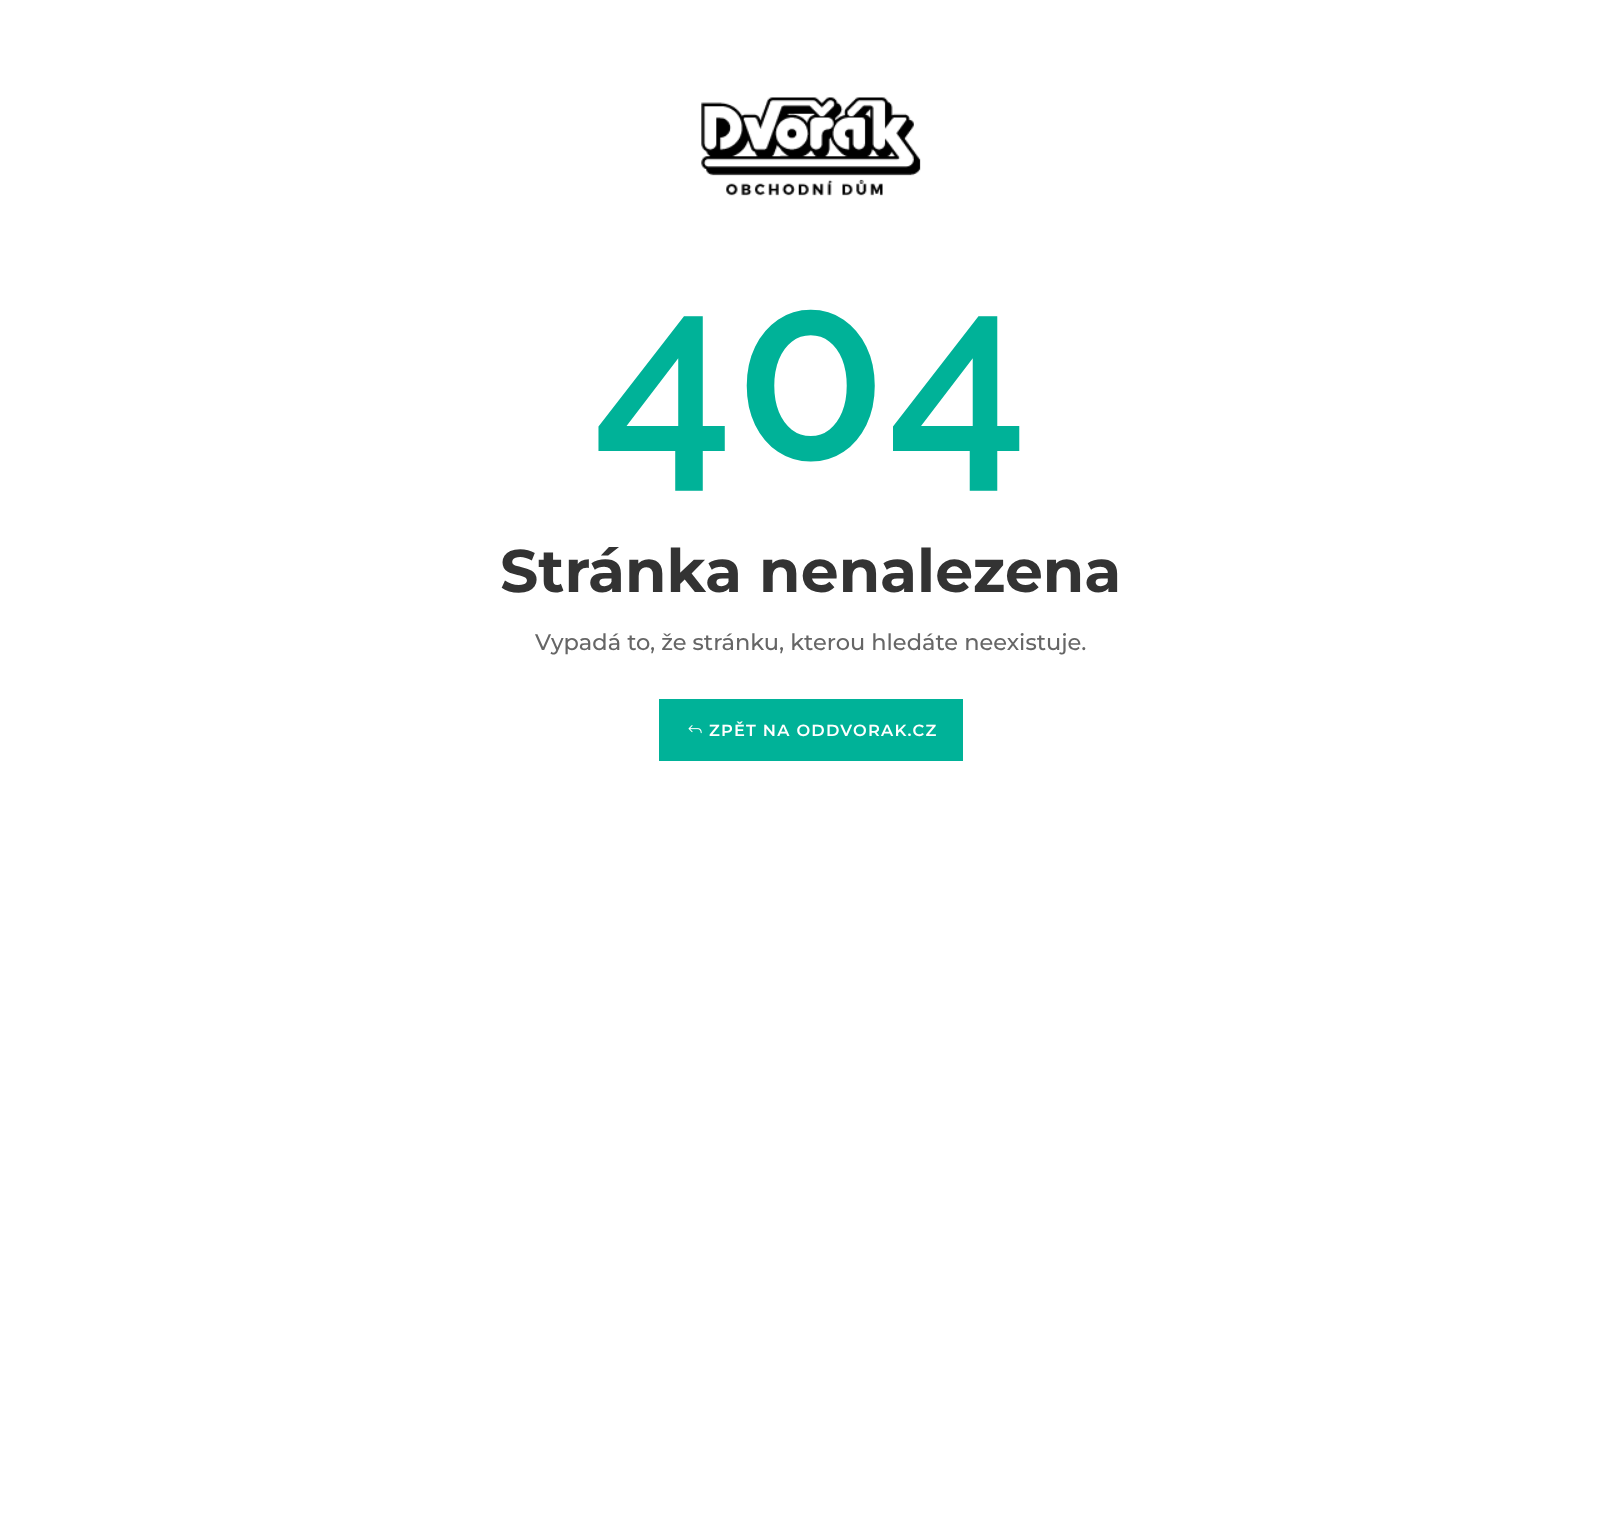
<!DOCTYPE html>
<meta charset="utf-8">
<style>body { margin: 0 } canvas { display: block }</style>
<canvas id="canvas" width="1621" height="1525"></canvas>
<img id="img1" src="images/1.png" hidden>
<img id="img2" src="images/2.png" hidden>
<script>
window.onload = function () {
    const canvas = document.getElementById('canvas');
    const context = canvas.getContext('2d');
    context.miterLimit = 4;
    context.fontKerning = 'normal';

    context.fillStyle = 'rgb(255, 255, 255)';
    context.fillRect(0, 0, 1621, 1525);
    context.drawImage(document.getElementById('img1'), 701, 97, 220, 99);
    context.fillStyle = 'rgb(0, 178, 152)';
    context.fillRect(659, 699, 304, 62);
    context.drawImage(document.getElementById('img2'), 688, 725, 14, 9);
    context.font = '100 250px Raleway';
    context.fillText('404', 593, 459);
    context.font = '100 60px Montserrat';
    context.fillStyle = 'rgb(51, 51, 51)';
    context.fillText('Stránka nenalezena', 500, 592);
    context.font = '100 22.5px "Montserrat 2"';
    context.fillStyle = 'rgb(102, 102, 102)';
    context.fillText('Vypadá to, že stránku, kterou hledáte neexistuje.', 535, 650);
    context.letterSpacing = '1.25px';
    context.font = '100 16.25px "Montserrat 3"';
    context.fillStyle = 'rgb(255, 255, 255)';
    context.fillText('ZPĚT NA ODDVORAK.CZ', 709, 736);
};
</script>
